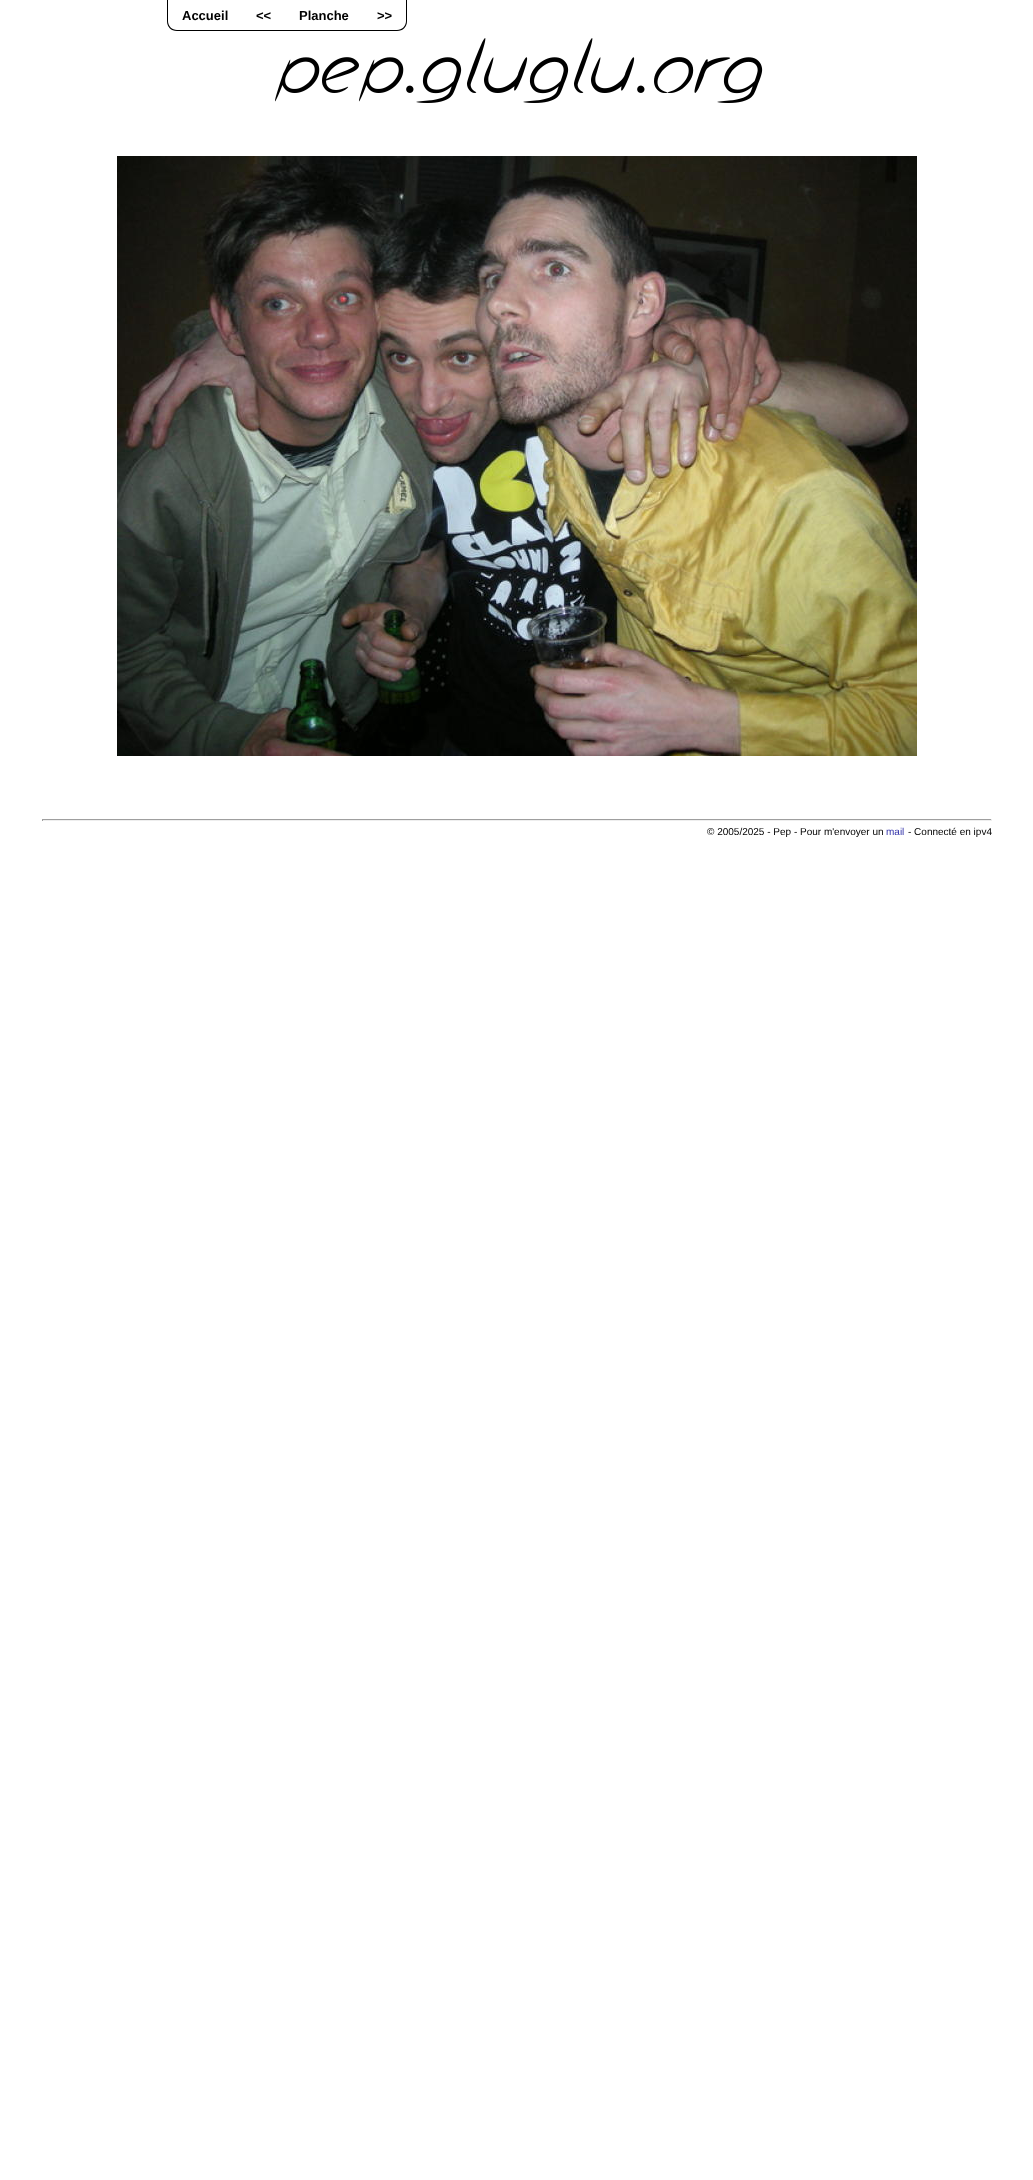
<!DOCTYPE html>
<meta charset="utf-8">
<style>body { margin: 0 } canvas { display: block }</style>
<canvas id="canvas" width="1033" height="2180"></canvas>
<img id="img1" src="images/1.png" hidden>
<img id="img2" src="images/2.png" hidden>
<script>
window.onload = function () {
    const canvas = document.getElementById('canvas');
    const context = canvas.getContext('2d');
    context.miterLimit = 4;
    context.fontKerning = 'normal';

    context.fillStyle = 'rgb(255, 255, 255)';
    context.fillRect(0, 0, 1033, 2180);
    context.fillStyle = 'rgb(0, 0, 0)';
    context.beginPath();
    context.moveTo(167, 0);
    context.lineTo(242, 0);
    context.lineTo(242, 31);
    context.lineTo(177, 31);
    context.bezierCurveTo(171, 31, 167, 27, 167, 21);
    context.closePath();
    context.moveTo(168, 0);
    context.lineTo(242, 0);
    context.lineTo(242, 30);
    context.lineTo(177, 30);
    context.bezierCurveTo(172, 30, 168, 26, 168, 21);
    context.closePath();
    context.fill('evenodd');
    context.fillRect(242, 30, 121, 1);
    context.beginPath();
    context.moveTo(363, 0);
    context.lineTo(407, 0);
    context.lineTo(407, 21);
    context.bezierCurveTo(407, 27, 403, 31, 397, 31);
    context.lineTo(363, 31);
    context.closePath();
    context.moveTo(363, 0);
    context.lineTo(406, 0);
    context.lineTo(406, 21);
    context.bezierCurveTo(406, 26, 402, 30, 397, 30);
    context.lineTo(363, 30);
    context.closePath();
    context.fill('evenodd');
    context.drawImage(document.getElementById('img1'), 275, 38, 488, 65);
    context.drawImage(document.getElementById('img2'), 117, 156, 800, 600);
    context.fillStyle = 'rgb(159, 159, 159)';
    context.fillRect(42, 819, 950, 1);
    context.fillStyle = 'rgb(238, 238, 238)';
    context.fillRect(991, 819, 1, 2);
    context.fillRect(42, 820, 950, 1);
    context.fillStyle = 'rgb(159, 159, 159)';
    context.fillRect(42, 819, 1, 2);
    context.font = 'bold 13px Liberation Sans';
    context.fillStyle = 'rgb(0, 0, 0)';
    context.fillText('Accueil', 182, 20);
    context.fillText('<<', 256, 20);
    context.fillText('Planche', 299, 20);
    context.fillText('>>', 377, 20);
    context.font = '10px Liberation Sans';
    context.fillText('© 2005/2025 - Pep - Pour m\'envoyer un', 707, 835);
    context.fillStyle = 'rgb(51, 51, 170)';
    context.fillText('mail', 886, 835);
    context.fillStyle = 'rgb(0, 0, 0)';
    context.fillText('- Connecté en ipv4', 908, 835);
};
</script>
